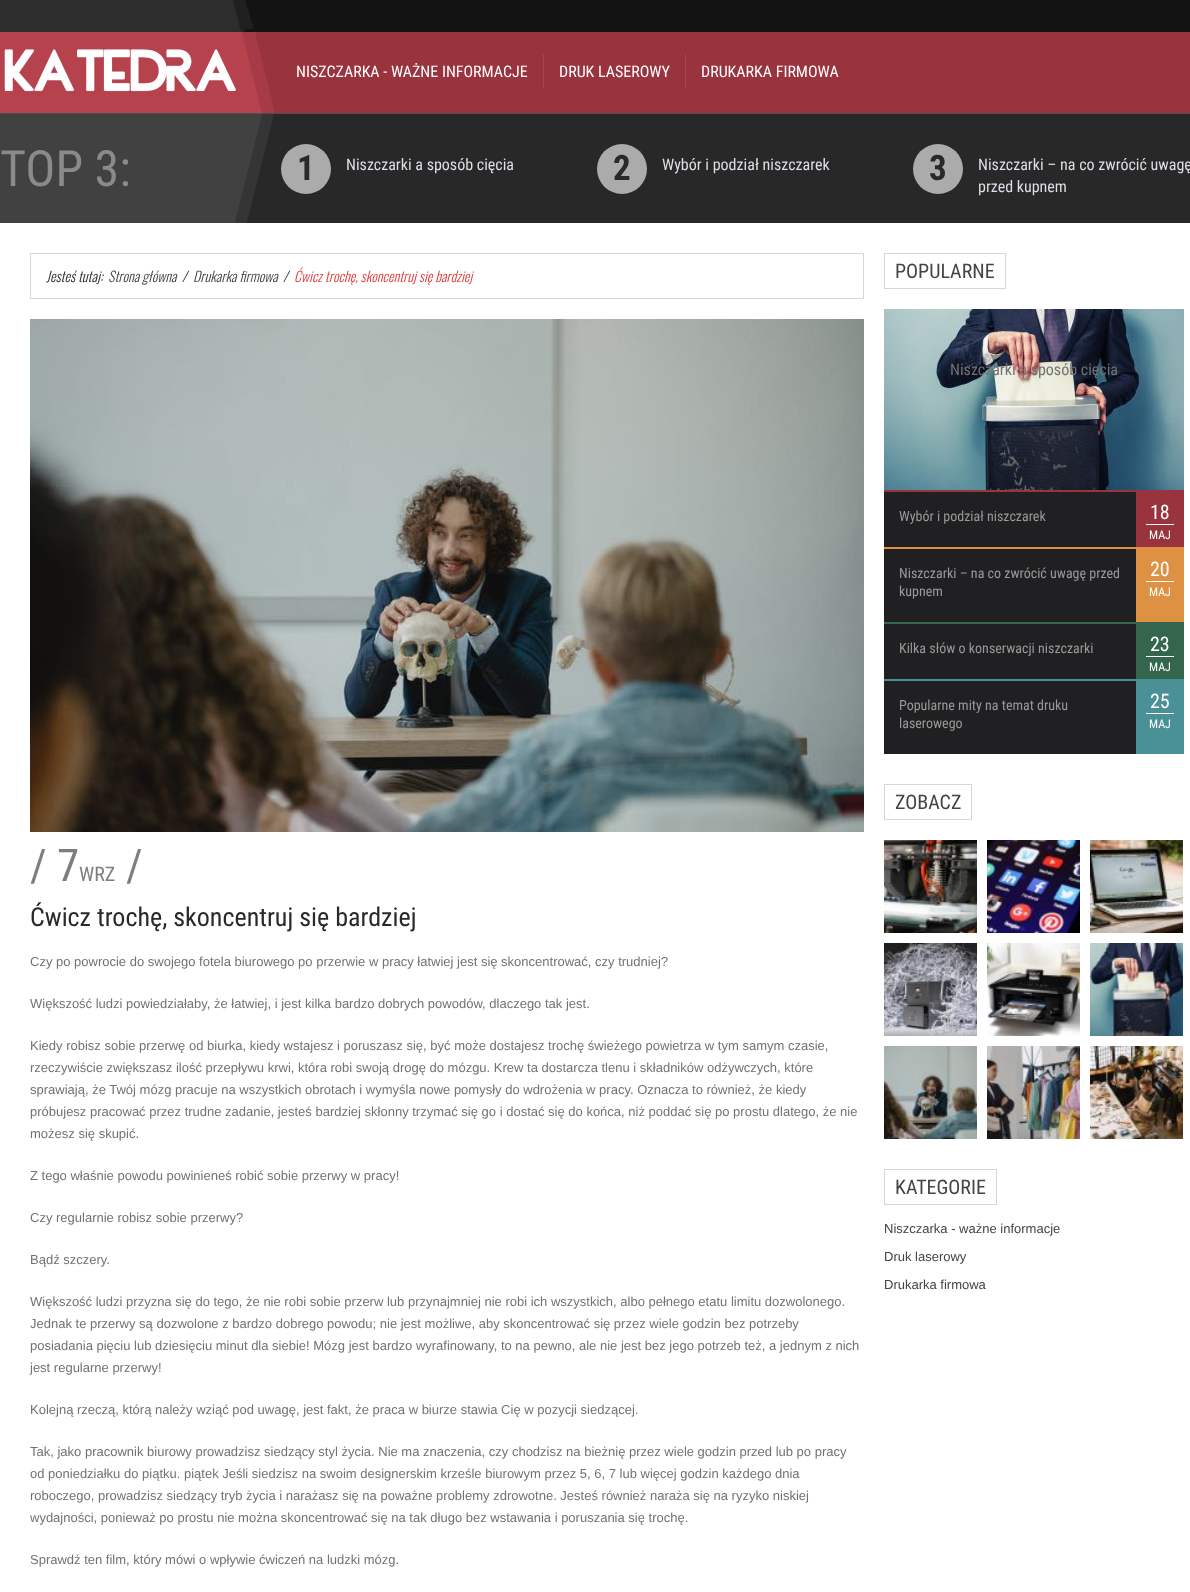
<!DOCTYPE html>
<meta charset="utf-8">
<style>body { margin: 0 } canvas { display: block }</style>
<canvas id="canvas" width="1190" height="1592"></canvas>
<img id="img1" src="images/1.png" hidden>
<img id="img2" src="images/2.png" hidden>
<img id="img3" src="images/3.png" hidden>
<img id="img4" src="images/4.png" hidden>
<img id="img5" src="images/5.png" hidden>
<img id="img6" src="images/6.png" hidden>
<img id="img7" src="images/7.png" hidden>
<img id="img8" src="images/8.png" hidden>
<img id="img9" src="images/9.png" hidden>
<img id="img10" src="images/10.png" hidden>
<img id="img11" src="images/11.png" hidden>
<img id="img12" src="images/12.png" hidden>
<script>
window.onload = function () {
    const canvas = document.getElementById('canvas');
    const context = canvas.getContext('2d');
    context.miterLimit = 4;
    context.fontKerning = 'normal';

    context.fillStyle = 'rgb(153, 51, 62)';
    context.fillRect(0, 0, 1190, 1592);
    context.fillStyle = 'rgb(19, 19, 19)';
    context.fillRect(245, 0, 945, 32);
    context.fillStyle = 'rgb(32, 32, 32)';
    context.fillRect(233, 0, 12, 32);
    context.fillStyle = 'rgb(45, 45, 45)';
    context.fillRect(0, 0, 233, 32);
    context.beginPath();
    context.moveTo(242, 36);
    context.lineTo(233, 36);
    context.lineTo(233, 0);
    context.closePath();
    context.fill();
    context.fillStyle = 'rgb(32, 32, 32)';
    context.beginPath();
    context.moveTo(254, 29);
    context.lineTo(245, 29);
    context.lineTo(245, 0);
    context.closePath();
    context.fill();
    context.fillStyle = 'rgba(182, 66, 78, 0.5)';
    context.fillRect(242, 32, 13, 53);
    context.fillStyle = 'rgb(182, 66, 78)';
    context.fillRect(0, 32, 242, 81);
    context.beginPath();
    context.moveTo(262, 113);
    context.lineTo(242, 113);
    context.lineTo(242, 32);
    context.closePath();
    context.fill();
    context.fillStyle = 'rgba(182, 66, 78, 0.5)';
    context.beginPath();
    context.moveTo(275, 113);
    context.lineTo(255, 113);
    context.lineTo(255, 32);
    context.closePath();
    context.fill();
    context.drawImage(document.getElementById('img1'), 4, 49, 232, 43);
    context.fillStyle = 'rgb(163, 72, 82)';
    context.fillRect(543, 54, 1, 35);
    context.fillRect(685, 54, 1, 35);
    context.fillStyle = 'rgb(40, 40, 41)';
    context.fillRect(245, 114, 945, 109);
    context.fillStyle = 'rgb(77, 77, 82)';
    context.fillRect(0, 113, 1190, 1);
    context.fillStyle = 'rgb(53, 53, 53)';
    context.fillRect(234, 182, 11, 41);
    context.fillStyle = 'rgb(66, 65, 65)';
    context.fillRect(0, 114, 233, 109);
    context.beginPath();
    context.moveTo(233, 114);
    context.lineTo(262, 114);
    context.lineTo(233, 230);
    context.closePath();
    context.fill();
    context.fillStyle = 'rgba(66, 65, 65, 0.5)';
    context.beginPath();
    context.moveTo(245, 114);
    context.lineTo(274, 114);
    context.lineTo(245, 230);
    context.closePath();
    context.fill();
    context.fillStyle = 'rgb(171, 171, 171)';
    context.beginPath();
    context.arc(306, 169, 25, 0, 2 * Math.PI);
    context.fill();
    context.beginPath();
    context.arc(622, 169, 25, 0, 2 * Math.PI);
    context.fill();
    context.beginPath();
    context.arc(938, 169, 25, 0, 2 * Math.PI);
    context.fill();
    context.fillStyle = 'rgb(255, 255, 255)';
    context.fillRect(0, 223, 1190, 1369);
    context.strokeStyle = 'rgb(214, 214, 214)';
    context.strokeRect(30.5, 253.5, 833, 45);
    context.drawImage(document.getElementById('img2'), 30, 319, 834, 513);
    context.strokeRect(884.5, 253.5, 121, 35);
    context.drawImage(document.getElementById('img3'), 884, 309, 300, 181);
    context.fillStyle = 'rgb(32, 32, 34)';
    context.fillRect(884, 492, 252, 55);
    context.fillStyle = 'rgb(153, 51, 62)';
    context.fillRect(884, 490, 300, 2);
    context.fillRect(1136, 492, 48, 55);
    context.fillStyle = 'rgb(255, 255, 255)';
    context.fillRect(1146, 524, 28, 1);
    context.fillStyle = 'rgb(32, 32, 34)';
    context.fillRect(884, 549, 252, 73);
    context.fillStyle = 'rgb(223, 145, 67)';
    context.fillRect(884, 547, 300, 2);
    context.fillRect(1136, 549, 48, 73);
    context.fillStyle = 'rgb(255, 255, 255)';
    context.fillRect(1146, 581, 28, 1);
    context.fillStyle = 'rgb(32, 32, 34)';
    context.fillRect(884, 624, 252, 55);
    context.fillStyle = 'rgb(51, 102, 77)';
    context.fillRect(884, 622, 300, 2);
    context.fillRect(1136, 624, 48, 55);
    context.fillStyle = 'rgb(255, 255, 255)';
    context.fillRect(1146, 656, 28, 1);
    context.fillStyle = 'rgb(32, 32, 34)';
    context.fillRect(884, 681, 252, 73);
    context.fillStyle = 'rgb(73, 145, 151)';
    context.fillRect(884, 679, 300, 2);
    context.fillRect(1136, 681, 48, 73);
    context.fillStyle = 'rgb(255, 255, 255)';
    context.fillRect(1146, 713, 28, 1);
    context.strokeRect(884.5, 784.5, 87, 35);
    context.drawImage(document.getElementById('img4'), 884, 840, 93, 93);
    context.drawImage(document.getElementById('img5'), 987, 840, 93, 93);
    context.drawImage(document.getElementById('img6'), 1090, 840, 93, 93);
    context.drawImage(document.getElementById('img7'), 884, 943, 93, 93);
    context.drawImage(document.getElementById('img8'), 987, 943, 93, 93);
    context.drawImage(document.getElementById('img9'), 1090, 943, 93, 93);
    context.drawImage(document.getElementById('img10'), 884, 1046, 93, 93);
    context.drawImage(document.getElementById('img11'), 987, 1046, 93, 93);
    context.drawImage(document.getElementById('img12'), 1090, 1046, 93, 93);
    context.strokeRect(884.5, 1169.5, 112, 35);
    context.font = '16px Roboto Condensed';
    context.fillText('NISZCZARKA - WAŻNE INFORMACJE', 296, 77);
    context.fillText('DRUK LASEROWY', 559, 77);
    context.fillText('DRUKARKA FIRMOWA', 701, 77);
    context.font = '50px Roboto Condensed';
    context.fillStyle = 'rgb(138, 138, 138)';
    context.fillText('TOP 3:', 0, 186);
    context.font = 'bold 35px Roboto Condensed';
    context.fillStyle = 'rgb(41, 41, 41)';
    context.fillText('1', 297, 180);
    context.font = '16px Roboto Condensed';
    context.fillStyle = 'rgb(222, 222, 230)';
    context.fillText('Niszczarki a sposób cięcia', 346, 170);
    context.font = 'bold 35px Roboto Condensed';
    context.fillStyle = 'rgb(41, 41, 41)';
    context.fillText('2', 613, 180);
    context.font = '16px Roboto Condensed';
    context.fillStyle = 'rgb(222, 222, 230)';
    context.fillText('Wybór i podział niszczarek', 662, 170);
    context.font = 'bold 35px Roboto Condensed';
    context.fillStyle = 'rgb(41, 41, 41)';
    context.fillText('3', 929, 180);
    context.font = '16px Roboto Condensed';
    context.fillStyle = 'rgb(222, 222, 230)';
    context.fillText('Niszczarki – na co zwrócić uwagę', 978, 170);
    context.fillText('przed kupnem', 978, 192);
    context.font = 'italic 300 14px Oswald';
    context.fillStyle = 'rgb(41, 41, 41)';
    context.fillText('Jesteś tutaj:', 46, 282);
    context.fillStyle = 'rgb(68, 68, 68)';
    context.fillText('Strona główna', 108, 282);
    context.fillStyle = 'rgb(41, 41, 41)';
    context.fillText('/', 182, 282);
    context.fillStyle = 'rgb(68, 68, 68)';
    context.fillText('Drukarka firmowa', 193, 282);
    context.fillStyle = 'rgb(41, 41, 41)';
    context.fillText('/', 283, 282);
    context.fillStyle = 'rgb(224, 61, 61)';
    context.fillText('Ćwicz trochę, skoncentruj się bardziej', 294, 282);
    context.font = '45px Roboto Condensed';
    context.fillStyle = 'rgb(126, 126, 126)';
    context.fillText('/ 7', 30, 881);
    context.font = '20px Roboto Condensed';
    context.fillText('WRZ', 79, 881);
    context.font = '45px Roboto Condensed';
    context.fillText('/', 126, 881);
    context.font = '26px Roboto Condensed';
    context.fillStyle = 'rgb(41, 41, 41)';
    context.fillText('Ćwicz trochę, skoncentruj się bardziej', 30, 926);
    context.font = '13px Liberation Sans';
    context.fillStyle = 'rgb(114, 114, 114)';
    context.fillText('Czy po powrocie do swojego fotela biurowego po przerwie w pracy łatwiej jest się skoncentrować, czy trudniej?', 30, 966);
    context.fillText('Większość ludzi powiedziałaby, że łatwiej, i jest kilka bardzo dobrych powodów, dlaczego tak jest.', 30, 1008);
    context.fillText('Kiedy robisz sobie przerwę od biurka, kiedy wstajesz i poruszasz się, być może dostajesz trochę świeżego powietrza w tym samym czasie,', 30, 1050);
    context.fillText('rzeczywiście zwiększasz ilość przepływu krwi, która robi swoją drogę do mózgu. Krew ta dostarcza tlenu i składników odżywczych, które', 30, 1072);
    context.fillText('sprawiają, że Twój mózg pracuje na wszystkich obrotach i wymyśla nowe pomysły do wdrożenia w pracy. Oznacza to również, że kiedy', 30, 1094);
    context.fillText('próbujesz pracować przez trudne zadanie, jesteś bardziej skłonny trzymać się go i dostać się do końca, niż poddać się po prostu dlatego, że nie', 30, 1116);
    context.fillText('możesz się skupić.', 30, 1138);
    context.fillText('Z tego właśnie powodu powinieneś robić sobie przerwy w pracy!', 30, 1180);
    context.fillText('Czy regularnie robisz sobie przerwy?', 30, 1222);
    context.fillText('Bądź szczery.', 30, 1264);
    context.fillText('Większość ludzi przyzna się do tego, że nie robi sobie przerw lub przynajmniej nie robi ich wszystkich, albo pełnego etatu limitu dozwolonego.', 30, 1306);
    context.fillText('Jednak te przerwy są dozwolone z bardzo dobrego powodu; nie jest możliwe, aby skoncentrować się przez wiele godzin bez potrzeby', 30, 1328);
    context.fillText('posiadania pięciu lub dziesięciu minut dla siebie! Mózg jest bardzo wyrafinowany, to na pewno, ale nie jest bez jego potrzeb też, a jednym z nich', 30, 1350);
    context.fillText('jest regularne przerwy!', 30, 1372);
    context.fillText('Kolejną rzeczą, którą należy wziąć pod uwagę, jest fakt, że praca w biurze stawia Cię w pozycji siedzącej.', 30, 1414);
    context.fillText('Tak, jako pracownik biurowy prowadzisz siedzący styl życia. Nie ma znaczenia, czy chodzisz na bieżnię przez wiele godzin przed lub po pracy', 30, 1456);
    context.fillText('od poniedziałku do piątku. piątek Jeśli siedzisz na swoim designerskim krześle biurowym przez 5, 6, 7 lub więcej godzin każdego dnia', 30, 1478);
    context.fillText('roboczego, prowadzisz siedzący tryb życia i narażasz się na poważne problemy zdrowotne. Jesteś również naraża się na ryzyko niskiej', 30, 1500);
    context.fillText('wydajności, ponieważ po prostu nie można skoncentrować się na tak długo bez wstawania i poruszania się trochę.', 30, 1522);
    context.fillText('Sprawdź ten film, który mówi o wpływie ćwiczeń na ludzki mózg.', 30, 1564);
    context.font = '20px Roboto Condensed';
    context.fillStyle = 'rgb(68, 68, 68)';
    context.fillText('POPULARNE', 895, 278);
    context.font = '16px Roboto Condensed';
    context.fillStyle = 'rgb(114, 114, 114)';
    context.fillText('Niszczarki a sposób cięcia', 950, 375);
    context.font = '14px Roboto Condensed';
    context.fillStyle = 'rgb(153, 153, 153)';
    context.fillText('Wybór i podział niszczarek', 899, 521);
    context.font = '20px Roboto Condensed';
    context.fillStyle = 'rgb(255, 255, 255)';
    context.fillText('18', 1150, 519);
    context.font = '12px Roboto Condensed';
    context.fillText('MAJ', 1149, 539);
    context.font = '14px Roboto Condensed';
    context.fillStyle = 'rgb(153, 153, 153)';
    context.fillText('Niszczarki – na co zwrócić uwagę przed', 899, 578);
    context.fillText('kupnem', 899, 596);
    context.font = '20px Roboto Condensed';
    context.fillStyle = 'rgb(255, 255, 255)';
    context.fillText('20', 1150, 576);
    context.font = '12px Roboto Condensed';
    context.fillText('MAJ', 1149, 596);
    context.font = '14px Roboto Condensed';
    context.fillStyle = 'rgb(153, 153, 153)';
    context.fillText('Kilka słów o konserwacji niszczarki', 899, 653);
    context.font = '20px Roboto Condensed';
    context.fillStyle = 'rgb(255, 255, 255)';
    context.fillText('23', 1150, 651);
    context.font = '12px Roboto Condensed';
    context.fillText('MAJ', 1149, 671);
    context.font = '14px Roboto Condensed';
    context.fillStyle = 'rgb(153, 153, 153)';
    context.fillText('Popularne mity na temat druku', 899, 710);
    context.fillText('laserowego', 899, 728);
    context.font = '20px Roboto Condensed';
    context.fillStyle = 'rgb(255, 255, 255)';
    context.fillText('25', 1150, 708);
    context.font = '12px Roboto Condensed';
    context.fillText('MAJ', 1149, 728);
    context.font = '20px Roboto Condensed';
    context.fillStyle = 'rgb(68, 68, 68)';
    context.fillText('ZOBACZ', 895, 809);
    context.fillText('KATEGORIE', 895, 1194);
    context.font = '13px Liberation Sans';
    context.fillText('Niszczarka - ważne informacje', 884, 1233);
    context.fillText('Druk laserowy', 884, 1261);
    context.fillText('Drukarka firmowa', 884, 1289);
};
</script>
